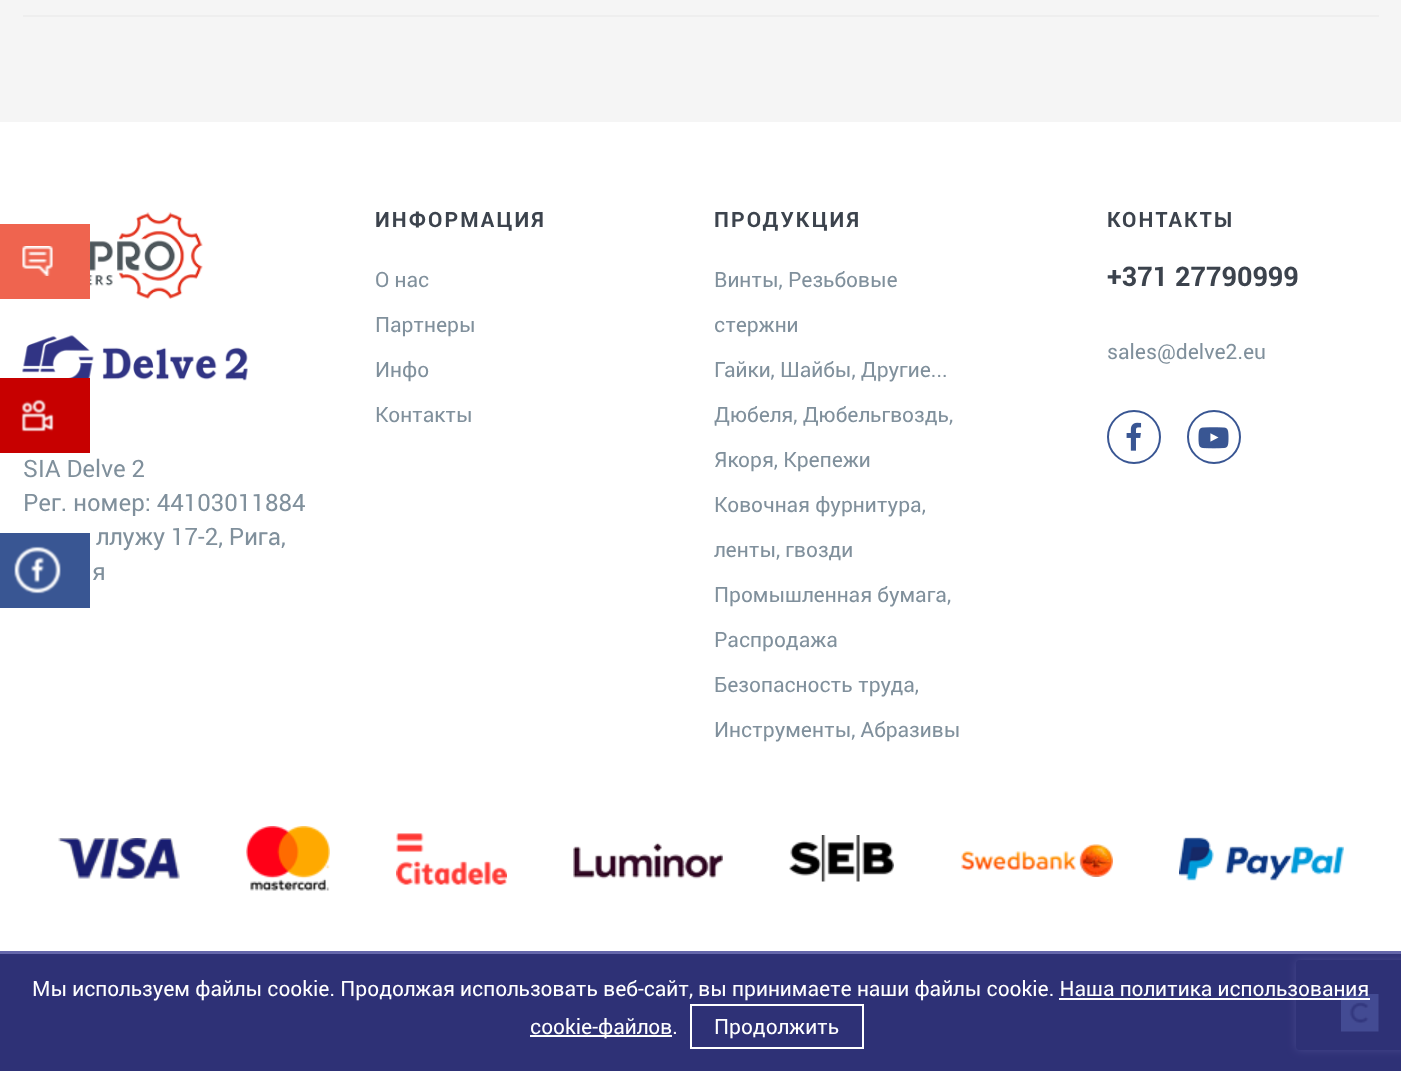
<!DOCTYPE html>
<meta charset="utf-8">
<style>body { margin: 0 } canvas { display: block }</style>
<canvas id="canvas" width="1401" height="1071"></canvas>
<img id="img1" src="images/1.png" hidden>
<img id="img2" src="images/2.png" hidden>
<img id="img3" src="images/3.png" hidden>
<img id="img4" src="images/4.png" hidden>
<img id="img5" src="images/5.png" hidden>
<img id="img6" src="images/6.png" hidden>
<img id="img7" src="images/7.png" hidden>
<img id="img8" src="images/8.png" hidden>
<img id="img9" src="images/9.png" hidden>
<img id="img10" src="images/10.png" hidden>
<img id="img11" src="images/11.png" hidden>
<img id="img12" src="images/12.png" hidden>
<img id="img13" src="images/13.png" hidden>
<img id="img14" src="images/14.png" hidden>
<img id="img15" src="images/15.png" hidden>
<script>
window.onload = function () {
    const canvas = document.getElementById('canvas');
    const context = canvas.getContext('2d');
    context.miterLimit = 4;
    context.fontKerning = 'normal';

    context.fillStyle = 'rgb(255, 255, 255)';
    context.fillRect(0, 0, 1401, 1071);
    context.fillStyle = 'rgb(245, 245, 245)';
    context.fillRect(0, 0, 1401, 122);
    context.fillStyle = 'rgb(238, 238, 238)';
    context.fillRect(23, 15, 1356, 2);
    context.beginPath();
    context.arc(1134, 437, 26, 0, 2 * Math.PI);
    context.strokeStyle = 'rgb(57, 86, 147)';
    context.lineWidth = 2;
    context.stroke();
    context.drawImage(document.getElementById('img1'), 1126, 422, 16, 29);
    context.beginPath();
    context.arc(1214, 437, 26, 0, 2 * Math.PI);
    context.stroke();
    context.drawImage(document.getElementById('img2'), 1198, 427, 31, 22);
    context.drawImage(document.getElementById('img3'), 90, 212, 113, 87);
    context.drawImage(document.getElementById('img4'), 22, 335, 226, 46);
    context.drawImage(document.getElementById('img5'), 58, 838, 122, 41);
    context.drawImage(document.getElementById('img6'), 246, 826, 84, 65);
    context.drawImage(document.getElementById('img7'), 396, 833, 111, 52);
    context.drawImage(document.getElementById('img8'), 573, 842, 150, 37);
    context.drawImage(document.getElementById('img9'), 789, 835, 105, 47);
    context.drawImage(document.getElementById('img10'), 961, 844, 152, 33);
    context.drawImage(document.getElementById('img11'), 1179, 837, 165, 44);
    context.fillStyle = 'rgb(39, 40, 46)';
    context.fillRect(0, 954, 1401, 117);
    context.drawImage(document.getElementById('img12'), 1341, 994, 38, 38);
    context.fillStyle = 'rgb(239, 100, 79)';
    context.fillRect(0, 224, 90, 75);
    context.drawImage(document.getElementById('img13'), 22, 246, 31, 30);
    context.fillStyle = 'rgb(199, 0, 0)';
    context.fillRect(0, 378, 90, 75);
    context.drawImage(document.getElementById('img14'), 21, 399, 33, 33);
    context.fillStyle = 'rgb(57, 86, 147)';
    context.fillRect(0, 533, 90, 75);
    context.drawImage(document.getElementById('img15'), 14, 546, 47, 48);
    context.save();
    context.beginPath();
    context.moveTo(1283, 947);
    context.lineTo(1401, 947);
    context.lineTo(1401, 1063);
    context.lineTo(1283, 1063);
    context.closePath();
    context.moveTo(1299, 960);
    context.lineTo(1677, 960);
    context.bezierCurveTo(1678.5, 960, 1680, 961.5, 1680, 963);
    context.lineTo(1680, 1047);
    context.bezierCurveTo(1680, 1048.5, 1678.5, 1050, 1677, 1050);
    context.lineTo(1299, 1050);
    context.bezierCurveTo(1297.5, 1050, 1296, 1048.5, 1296, 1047);
    context.lineTo(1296, 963);
    context.bezierCurveTo(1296, 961.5, 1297.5, 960, 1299, 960);
    context.closePath();
    context.clip('evenodd');
    context.fillStyle = 'rgb(128, 128, 128)';
    context.filter = 'blur(4px)';
    context.beginPath();
    context.roundRect(1296, 960, 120, 90, 3);
    context.fill();
    context.filter = 'none';
    context.restore();
    context.fillStyle = 'rgba(49, 52, 143, 0.75)';
    context.fillRect(0, 951, 1401, 120);
    context.fillStyle = 'rgb(255, 255, 255)';
    context.fillRect(1059, 998, 311, 2);
    context.fillRect(530, 1035, 142, 2);
    context.strokeStyle = 'rgb(255, 255, 255)';
    context.strokeRect(691, 1005, 172, 43);
    context.letterSpacing = '2.1px';
    context.font = 'bold 21px Roboto';
    context.fillStyle = 'rgb(60, 67, 77)';
    context.fillText('ИНФОРМАЦИЯ', 375, 227);
    context.letterSpacing = '0px';
    context.font = '21px Roboto';
    context.fillStyle = 'rgb(128, 144, 156)';
    context.fillText('О нас', 375, 287);
    context.fillText('Партнеры', 375, 332);
    context.fillText('Инфо', 375, 377);
    context.fillText('Контакты', 375, 422);
    context.letterSpacing = '2.1px';
    context.font = 'bold 21px Roboto';
    context.fillStyle = 'rgb(60, 67, 77)';
    context.fillText('ПРОДУКЦИЯ', 714, 227);
    context.letterSpacing = '0px';
    context.font = '21px Roboto';
    context.fillStyle = 'rgb(128, 144, 156)';
    context.fillText('Винты, Резьбовые', 714, 287);
    context.fillText('стержни', 714, 332);
    context.fillText('Гайки, Шайбы, Другие...', 714, 377);
    context.fillText('Дюбеля, Дюбельгвоздь,', 714, 422);
    context.fillText('Якоря, Крепежи', 714, 467);
    context.fillText('Ковочная фурнитура,', 714, 512);
    context.fillText('ленты, гвозди', 714, 557);
    context.fillText('Промышленная бумага,', 714, 602);
    context.fillText('Распродажа', 714, 647);
    context.fillText('Безопасность труда,', 714, 692);
    context.fillText('Инструменты, Абразивы', 714, 737);
    context.letterSpacing = '2.1px';
    context.font = 'bold 21px Roboto';
    context.fillStyle = 'rgb(60, 67, 77)';
    context.fillText('КОНТАКТЫ', 1107, 227);
    context.letterSpacing = '0px';
    context.font = 'bold 27px Roboto';
    context.fillText('+371 27790999', 1107, 286);
    context.font = '21px Roboto';
    context.fillStyle = 'rgb(128, 144, 156)';
    context.fillText('sales@delve2.eu', 1107, 359);
    context.font = '24px Roboto';
    context.fillText('SIA Delve 2', 23, 477);
    context.fillText('Рег. номер: 44103011884', 23, 511);
    context.fillText('ллужу 17-2, Рига,', 96, 545);
    context.fillText('я', 92, 580);
    context.font = '21px Roboto';
    context.fillStyle = 'rgb(255, 255, 255)';
    context.fillText('Мы используем файлы cookie. Продолжая использовать веб-сайт, вы принимаете наши файлы cookie. Наша политика использования', 32, 996);
    context.fillText('cookie-файлов.', 530, 1034);
    context.fillText('Продолжить', 714, 1034);
};
</script>
